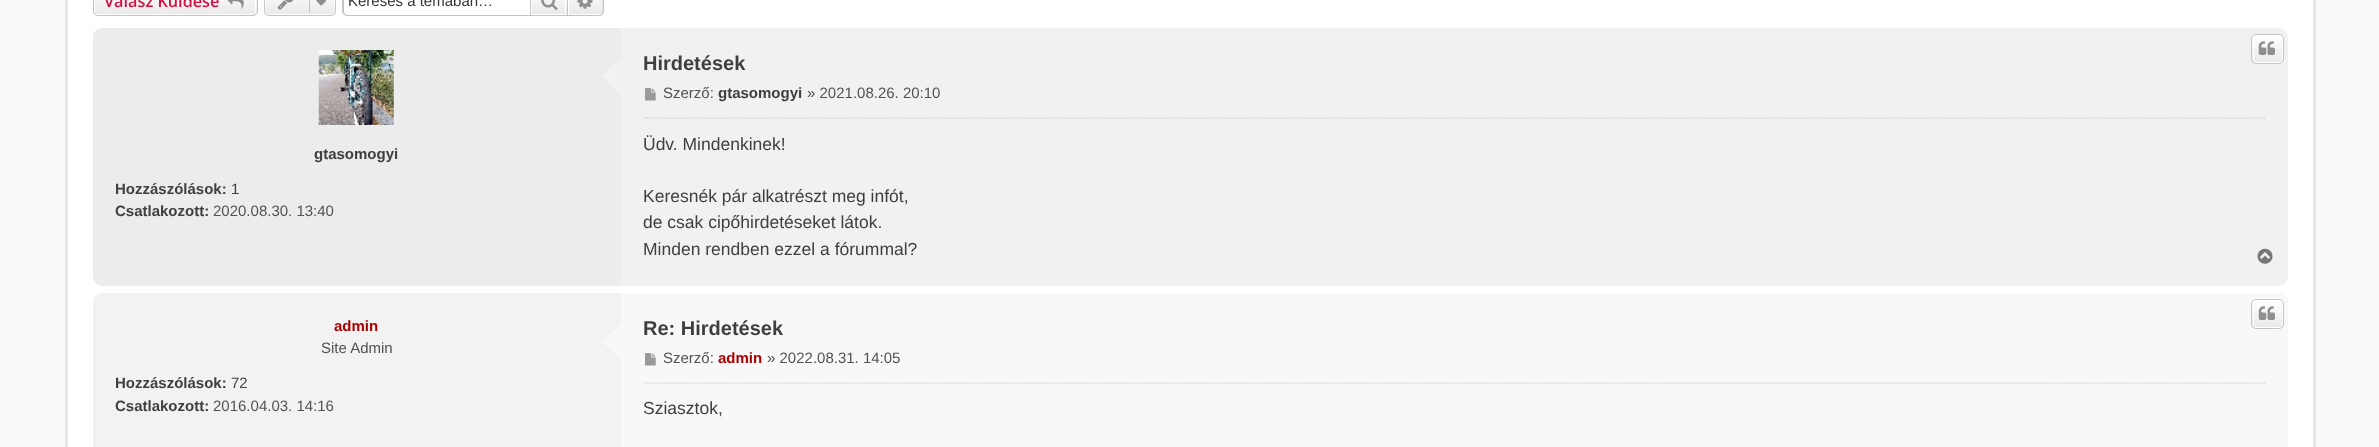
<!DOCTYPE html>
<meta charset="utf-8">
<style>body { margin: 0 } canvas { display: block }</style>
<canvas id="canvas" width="2379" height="447"></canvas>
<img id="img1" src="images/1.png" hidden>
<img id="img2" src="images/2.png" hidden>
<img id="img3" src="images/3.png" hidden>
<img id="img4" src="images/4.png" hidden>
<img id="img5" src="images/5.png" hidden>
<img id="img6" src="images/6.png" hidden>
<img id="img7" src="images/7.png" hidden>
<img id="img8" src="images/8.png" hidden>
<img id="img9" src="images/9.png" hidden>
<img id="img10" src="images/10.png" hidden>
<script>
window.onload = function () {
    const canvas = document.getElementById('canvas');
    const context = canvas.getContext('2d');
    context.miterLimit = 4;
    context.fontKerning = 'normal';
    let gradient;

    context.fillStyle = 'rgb(249, 249, 249)';
    context.fillRect(0, 0, 2379, 447);
    context.fillStyle = 'rgb(255, 255, 255)';
    context.fillRect(68, 0, 2245, 447);
    context.fillStyle = 'rgb(231, 231, 231)';
    context.fillRect(2313, 0, 3, 447);
    context.fillRect(65, 0, 3, 447);
    context.save();
    context.beginPath();
    context.roundRect(93, -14, 165, 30, 5);
    context.clip();
    gradient = context.createLinearGradient(175, -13, 175, 15);
    gradient.addColorStop(0, 'rgb(255, 255, 255)');
    gradient.addColorStop(1, 'rgb(233, 233, 233)');
    context.fillStyle = gradient;
    context.fillRect(93, 0, 165, 15);
    context.restore();
    context.beginPath();
    context.roundRect(94.5, -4.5, 161, 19, 3.5);
    context.strokeStyle = 'rgb(255, 255, 255)';
    context.stroke();
    context.beginPath();
    context.roundRect(93.5, -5.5, 164, 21, 4.5);
    context.strokeStyle = 'rgb(199, 195, 191)';
    context.stroke();
    context.drawImage(document.getElementById('img1'), 227, 0, 17, 9);
    context.save();
    context.beginPath();
    context.roundRect(264, -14, 72, 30, 5);
    context.clip();
    gradient = context.createLinearGradient(300, -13, 300, 15);
    gradient.addColorStop(0, 'rgb(255, 255, 255)');
    gradient.addColorStop(1, 'rgb(233, 233, 233)');
    context.fillStyle = gradient;
    context.fillRect(264, 0, 72, 15);
    context.restore();
    context.beginPath();
    context.roundRect(265.5, -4.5, 69, 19, 3.5);
    context.strokeStyle = 'rgb(255, 255, 255)';
    context.stroke();
    context.beginPath();
    context.roundRect(264.5, -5.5, 71, 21, 4.5);
    context.strokeStyle = 'rgb(199, 195, 191)';
    context.stroke();
    context.drawImage(document.getElementById('img2'), 277, 0, 17, 10);
    context.fillStyle = 'rgb(199, 195, 191)';
    context.fillRect(309, 0, 1, 13);
    context.drawImage(document.getElementById('img3'), 316, 0, 11, 6);
    context.beginPath();
    context.moveTo(348, -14);
    context.lineTo(530, -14);
    context.lineTo(530, 16);
    context.lineTo(348, 16);
    context.bezierCurveTo(345, 16, 342, 14, 342, 11);
    context.lineTo(342, -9);
    context.bezierCurveTo(342, -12, 345, -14, 348, -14);
    context.closePath();
    context.moveTo(348, -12);
    context.lineTo(530, -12);
    context.lineTo(530, 15);
    context.lineTo(348, 15);
    context.bezierCurveTo(345, 15, 344, 13, 344, 11);
    context.lineTo(344, -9);
    context.bezierCurveTo(344, -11, 345, -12, 348, -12);
    context.closePath();
    context.fill('evenodd');
    gradient = context.createLinearGradient(549, -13, 549, 15);
    gradient.addColorStop(0, 'rgb(255, 255, 255)');
    gradient.addColorStop(1, 'rgb(233, 233, 233)');
    context.fillStyle = gradient;
    context.fillRect(532, 0, 35, 15);
    context.strokeStyle = 'rgb(255, 255, 255)';
    context.strokeRect(531.5, -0.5, 34, 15);
    context.strokeStyle = 'rgb(199, 195, 191)';
    context.strokeRect(530.5, -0.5, 37, 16);
    context.drawImage(document.getElementById('img4'), 541, 0, 17, 10);
    gradient = context.createLinearGradient(585, -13, 585, 15);
    gradient.addColorStop(0, 'rgb(255, 255, 255)');
    gradient.addColorStop(1, 'rgb(233, 233, 233)');
    context.fillStyle = gradient;
    context.beginPath();
    context.moveTo(568, -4);
    context.lineTo(599, -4);
    context.bezierCurveTo(601, -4, 603, -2, 603, 0);
    context.lineTo(603, 11);
    context.bezierCurveTo(603, 13, 601, 15, 599, 15);
    context.lineTo(568, 15);
    context.closePath();
    context.fill();
    context.beginPath();
    context.moveTo(568.5, -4.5);
    context.lineTo(599, -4.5);
    context.bezierCurveTo(601, -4.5, 602.5, -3, 602.5, -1);
    context.lineTo(602.5, 11);
    context.bezierCurveTo(602.5, 13, 601, 14.5, 599, 14.5);
    context.lineTo(568.5, 14.5);
    context.closePath();
    context.strokeStyle = 'rgb(255, 255, 255)';
    context.stroke();
    context.fillStyle = 'rgb(199, 195, 191)';
    context.beginPath();
    context.moveTo(567.5, -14);
    context.lineTo(599, -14);
    context.bezierCurveTo(601.5, -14, 604, -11.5, 604, -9);
    context.lineTo(604, 11);
    context.bezierCurveTo(604, 14, 601.5, 16, 599, 16);
    context.lineTo(567.5, 16);
    context.closePath();
    context.moveTo(567.5, -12.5);
    context.lineTo(599, -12.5);
    context.bezierCurveTo(601, -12.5, 602.5, -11, 602.5, -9);
    context.lineTo(602.5, 11);
    context.bezierCurveTo(602.5, 13.5, 601, 15, 599, 15);
    context.lineTo(567.5, 15);
    context.closePath();
    context.fill('evenodd');
    context.drawImage(document.getElementById('img5'), 577, 0, 16, 9);
    context.fillStyle = 'rgb(241, 241, 241)';
    context.beginPath();
    context.roundRect(93, 28, 2195, 258, 9);
    context.fill();
    context.fillStyle = 'rgb(236, 236, 236)';
    context.beginPath();
    context.roundRect(93, 28, 528, 258, [9, 0, 0, 9]);
    context.fill();
    context.drawImage(document.getElementById('img6'), 318, 50, 76, 75);
    context.fillStyle = 'rgb(242, 242, 242)';
    context.beginPath();
    context.moveTo(621, 59);
    context.lineTo(621, 94);
    context.lineTo(601, 76);
    context.closePath();
    context.fill();
    context.save();
    context.beginPath();
    context.roundRect(2251, 34, 33, 30, 5);
    context.clip();
    gradient = context.createLinearGradient(2268, 35, 2268, 63);
    gradient.addColorStop(0, 'rgb(255, 255, 255)');
    gradient.addColorStop(1, 'rgb(233, 233, 233)');
    context.fillStyle = gradient;
    context.fillRect(2251, 35, 33, 28);
    context.restore();
    context.beginPath();
    context.roundRect(2253.5, 35.5, 29, 27, 3.5);
    context.stroke();
    context.beginPath();
    context.roundRect(2251.5, 34.5, 32, 29, 4.5);
    context.strokeStyle = 'rgb(199, 195, 191)';
    context.stroke();
    context.drawImage(document.getElementById('img7'), 2258, 41, 17, 14);
    context.beginPath();
    context.moveTo(644, 118);
    context.lineTo(2265, 118);
    context.strokeStyle = 'rgb(194, 194, 194)';
    context.lineWidth = 1.2;
    context.setLineDash([1.25, 1.25]);
    context.stroke();
    context.drawImage(document.getElementById('img8'), 645, 88, 11, 13);
    context.drawImage(document.getElementById('img9'), 2257, 248, 16, 16);
    context.fillStyle = 'rgb(248, 248, 248)';
    context.beginPath();
    context.roundRect(93, 293, 2195, 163, 9);
    context.fill();
    context.fillStyle = 'rgb(242, 242, 242)';
    context.beginPath();
    context.moveTo(102, 293);
    context.lineTo(621, 293);
    context.lineTo(621, 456);
    context.lineTo(102, 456);
    context.bezierCurveTo(97, 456, 93, 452, 93, 447);
    context.lineTo(93, 302);
    context.bezierCurveTo(93, 297, 97, 293, 102, 293);
    context.closePath();
    context.fill();
    context.fillStyle = 'rgb(248, 248, 248)';
    context.beginPath();
    context.moveTo(621, 324);
    context.lineTo(621, 359);
    context.lineTo(601, 341);
    context.closePath();
    context.fill();
    context.save();
    context.beginPath();
    context.roundRect(2251, 299, 33, 30, 5);
    context.clip();
    gradient = context.createLinearGradient(2268, 300, 2268, 328);
    gradient.addColorStop(0, 'rgb(255, 255, 255)');
    gradient.addColorStop(1, 'rgb(233, 233, 233)');
    context.fillStyle = gradient;
    context.fillRect(2251, 300, 33, 28);
    context.restore();
    context.beginPath();
    context.roundRect(2253.5, 300.5, 29, 27, 3.5);
    context.strokeStyle = 'rgb(255, 255, 255)';
    context.lineWidth = 1;
    context.setLineDash([]);
    context.stroke();
    context.beginPath();
    context.roundRect(2251.5, 299.5, 32, 29, 4.5);
    context.strokeStyle = 'rgb(199, 195, 191)';
    context.stroke();
    context.drawImage(document.getElementById('img7'), 2258, 306, 17, 14);
    context.beginPath();
    context.moveTo(644, 383);
    context.lineTo(2265, 383);
    context.strokeStyle = 'rgb(194, 194, 194)';
    context.lineWidth = 1.2;
    context.setLineDash([1.25, 1.25]);
    context.stroke();
    context.drawImage(document.getElementById('img10'), 645, 353, 11, 13);
    context.font = '600 16.25px Open Sans';
    context.fillStyle = 'rgb(211, 17, 65)';
    context.fillText('Válasz Küldése', 104, 7);
    context.font = '15px Liberation Sans';
    context.fillStyle = 'rgb(51, 51, 51)';
    context.fillText('Keresés a témában…', 348, 6);
    context.font = 'bold 15px Liberation Sans';
    context.fillStyle = 'rgb(63, 63, 63)';
    context.fillText('gtasomogyi', 314, 159);
    context.fillText('Hozzászólások:', 115, 194);
    context.font = '15px Liberation Sans';
    context.fillText('1', 231, 194);
    context.font = 'bold 15px Liberation Sans';
    context.fillText('Csatlakozott:', 115, 216);
    context.font = '15px Liberation Sans';
    context.fillStyle = 'rgb(82, 82, 82)';
    context.fillText('2020.08.30. 13:40', 213, 216);
    context.font = 'bold 20px Liberation Sans';
    context.fillStyle = 'rgb(63, 63, 63)';
    context.fillText('Hirdetések', 643, 70);
    context.font = '15px Liberation Sans';
    context.fillStyle = 'rgb(82, 82, 82)';
    context.fillText('Szerző:', 663, 98);
    context.font = 'bold 15px Liberation Sans';
    context.fillStyle = 'rgb(63, 63, 63)';
    context.fillText('gtasomogyi', 718, 98);
    context.font = '15px Liberation Sans';
    context.fillStyle = 'rgb(82, 82, 82)';
    context.fillText('» 2021.08.26. 20:10', 807, 98);
    context.font = '17.5px Liberation Sans';
    context.fillStyle = 'rgb(63, 63, 63)';
    context.fillText('Üdv. Mindenkinek!', 643, 150);
    context.fillText('Keresnék pár alkatrészt meg infót,', 643, 202);
    context.fillText('de csak cipőhirdetéseket látok.', 643, 228);
    context.fillText('Minden rendben ezzel a fórummal?', 643, 255);
    context.font = 'bold 15px Liberation Sans';
    context.fillStyle = 'rgb(170, 0, 0)';
    context.fillText('admin', 334, 331);
    context.font = '15px Liberation Sans';
    context.fillStyle = 'rgb(82, 82, 82)';
    context.fillText('Site Admin', 321, 353);
    context.font = 'bold 15px Liberation Sans';
    context.fillStyle = 'rgb(63, 63, 63)';
    context.fillText('Hozzászólások:', 115, 388);
    context.font = '15px Liberation Sans';
    context.fillText('72', 231, 388);
    context.font = 'bold 15px Liberation Sans';
    context.fillText('Csatlakozott:', 115, 411);
    context.font = '15px Liberation Sans';
    context.fillStyle = 'rgb(82, 82, 82)';
    context.fillText('2016.04.03. 14:16', 213, 411);
    context.font = 'bold 20px Liberation Sans';
    context.fillStyle = 'rgb(63, 63, 63)';
    context.fillText('Re: Hirdetések', 643, 335);
    context.font = '15px Liberation Sans';
    context.fillStyle = 'rgb(82, 82, 82)';
    context.fillText('Szerző:', 663, 363);
    context.font = 'bold 15px Liberation Sans';
    context.fillStyle = 'rgb(170, 0, 0)';
    context.fillText('admin', 718, 363);
    context.font = '15px Liberation Sans';
    context.fillStyle = 'rgb(82, 82, 82)';
    context.fillText('» 2022.08.31. 14:05', 767, 363);
    context.font = '17.5px Liberation Sans';
    context.fillStyle = 'rgb(63, 63, 63)';
    context.fillText('Sziasztok,', 643, 414);
};
</script>
